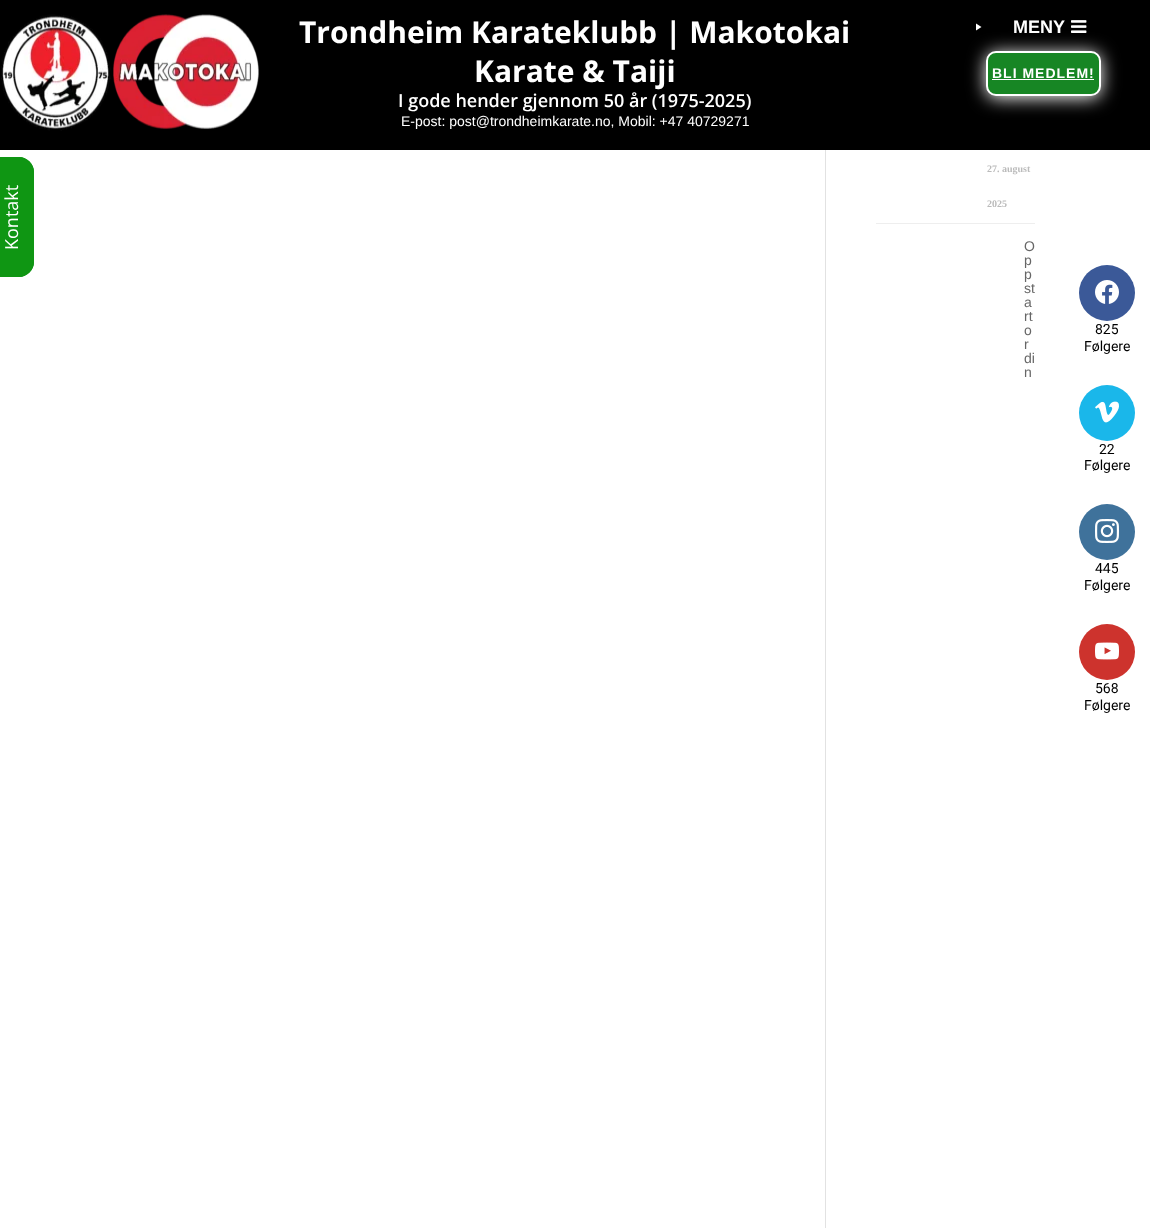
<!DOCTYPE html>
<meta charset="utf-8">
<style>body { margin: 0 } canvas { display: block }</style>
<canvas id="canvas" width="1150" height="1228"></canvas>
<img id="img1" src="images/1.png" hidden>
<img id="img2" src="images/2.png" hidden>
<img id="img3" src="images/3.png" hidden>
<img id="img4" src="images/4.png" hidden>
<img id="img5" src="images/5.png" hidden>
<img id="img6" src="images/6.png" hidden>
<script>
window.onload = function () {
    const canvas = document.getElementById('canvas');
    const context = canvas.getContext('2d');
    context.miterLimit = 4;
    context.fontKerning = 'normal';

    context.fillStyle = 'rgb(255, 255, 255)';
    context.fillRect(0, 0, 1150, 1228);
    context.fillStyle = 'rgb(15, 150, 19)';
    context.beginPath();
    context.moveTo(0, 277);
    context.lineTo(0, 157);
    context.lineTo(19, 157);
    context.bezierCurveTo(27, 157, 34, 164, 34, 172);
    context.lineTo(34, 262);
    context.bezierCurveTo(34, 270, 27, 277, 19, 277);
    context.closePath();
    context.fill();
    context.beginPath();
    context.moveTo(0, 277);
    context.lineTo(0, 157);
    context.lineTo(19, 157);
    context.bezierCurveTo(27, 157, 34, 164, 34, 172);
    context.lineTo(34, 262);
    context.bezierCurveTo(34, 270, 27, 277, 19, 277);
    context.closePath();
    context.moveTo(0, 276);
    context.lineTo(0, 158);
    context.lineTo(19, 158);
    context.bezierCurveTo(27, 158, 33, 164, 33, 172);
    context.lineTo(33, 262);
    context.bezierCurveTo(33, 270, 27, 276, 19, 276);
    context.closePath();
    context.fill('evenodd');
    context.fillStyle = 'rgb(0, 0, 0)';
    context.fillRect(0, 0, 1150, 150);
    context.drawImage(document.getElementById('img1'), 1, 14, 258, 117);
    context.fillStyle = 'rgb(255, 255, 255)';
    context.beginPath();
    context.moveTo(976, 23.5);
    context.lineTo(981.5, 27);
    context.lineTo(976, 30.5);
    context.closePath();
    context.fill();
    context.drawImage(document.getElementById('img2'), 1071, 20, 16, 13);
    context.filter = 'blur(9px)';
    context.beginPath();
    context.roundRect(986, 53, 115, 45, 10);
    context.fill();
    context.filter = 'none';
    context.fillStyle = 'rgb(23, 134, 36)';
    context.beginPath();
    context.roundRect(987, 52, 113, 43, 9);
    context.fill();
    context.strokeStyle = 'rgb(255, 255, 255)';
    context.lineWidth = 2;
    context.stroke();
    context.fillStyle = 'rgb(255, 255, 255)';
    context.fillRect(992, 79, 102, 1);
    context.fillStyle = 'rgb(226, 226, 226)';
    context.fillRect(825, 150, 1, 1078);
    context.fillStyle = 'rgb(238, 238, 238)';
    context.fillRect(876, 223, 159, 1);
    context.fillStyle = 'rgb(59, 89, 152)';
    context.beginPath();
    context.arc(1107, 293, 28, 0, 2 * Math.PI);
    context.fill();
    context.drawImage(document.getElementById('img3'), 1095, 280, 24, 24);
    context.fillStyle = 'rgb(26, 183, 234)';
    context.beginPath();
    context.arc(1107, 413, 28, 0, 2 * Math.PI);
    context.fill();
    context.drawImage(document.getElementById('img4'), 1095, 401, 24, 22);
    context.fillStyle = 'rgb(63, 114, 155)';
    context.beginPath();
    context.arc(1107, 532, 28, 0, 2 * Math.PI);
    context.fill();
    context.drawImage(document.getElementById('img5'), 1095, 519, 24, 24);
    context.fillStyle = 'rgb(205, 51, 45)';
    context.beginPath();
    context.arc(1107, 652, 28, 0, 2 * Math.PI);
    context.fill();
    context.drawImage(document.getElementById('img6'), 1095, 642, 24, 18);
    context.font = '18px Open Sans';
    context.fillStyle = 'rgb(255, 255, 255)';
    context.save();
    context.translate(18, 250);
    context.rotate(-90 * Math.PI / 180);
    context.fillText('Kontakt', 0, 0);
    context.restore();
    context.font = 'bold 30px Open Sans';
    context.fillText('Trondheim Karateklubb | Makotokai', 299, 43);
    context.fillText('Karate & Taiji', 474, 82);
    context.font = '600 18px Open Sans';
    context.fillText('I gode hender gjennom 50 år (1975-2025)', 398, 107);
    context.font = '14px Liberation Sans';
    context.fillText('E-post: post@trondheimkarate.no, Mobil: +47 40729271', 401, 126);
    context.font = 'bold 18px Liberation Sans';
    context.fillText('MENY', 1013, 33);
    context.letterSpacing = '1px';
    context.font = 'bold 14px Liberation Sans';
    context.fillText('BLI MEDLEM!', 992, 78);
    context.letterSpacing = '0px';
    context.font = 'bold 10px Liberation Serif';
    context.fillStyle = 'rgb(187, 187, 187)';
    context.fillText('27. august', 987, 172);
    context.fillText('2025', 987, 207);
    context.font = '14px Liberation Sans';
    context.fillStyle = 'rgb(102, 102, 102)';
    context.fillText('O', 1024, 251);
    context.fillText('p', 1024, 265);
    context.fillText('p', 1024, 279);
    context.fillText('st', 1024, 293);
    context.fillText('a', 1024, 307);
    context.fillText('rt', 1024, 321);
    context.fillText('o', 1024, 335);
    context.fillText('r', 1024, 349);
    context.fillText('di', 1024, 363);
    context.fillText('n', 1024, 377);
    context.font = '14px Roboto';
    context.fillStyle = 'rgb(0, 0, 0)';
    context.fillText('825', 1095, 334);
    context.fillText('Følgere', 1084, 351);
    context.fillText('22', 1099, 454);
    context.fillText('Følgere', 1084, 470);
    context.fillText('445', 1095, 573);
    context.fillText('Følgere', 1084, 590);
    context.fillText('568', 1095, 693);
    context.fillText('Følgere', 1084, 710);
};
</script>
